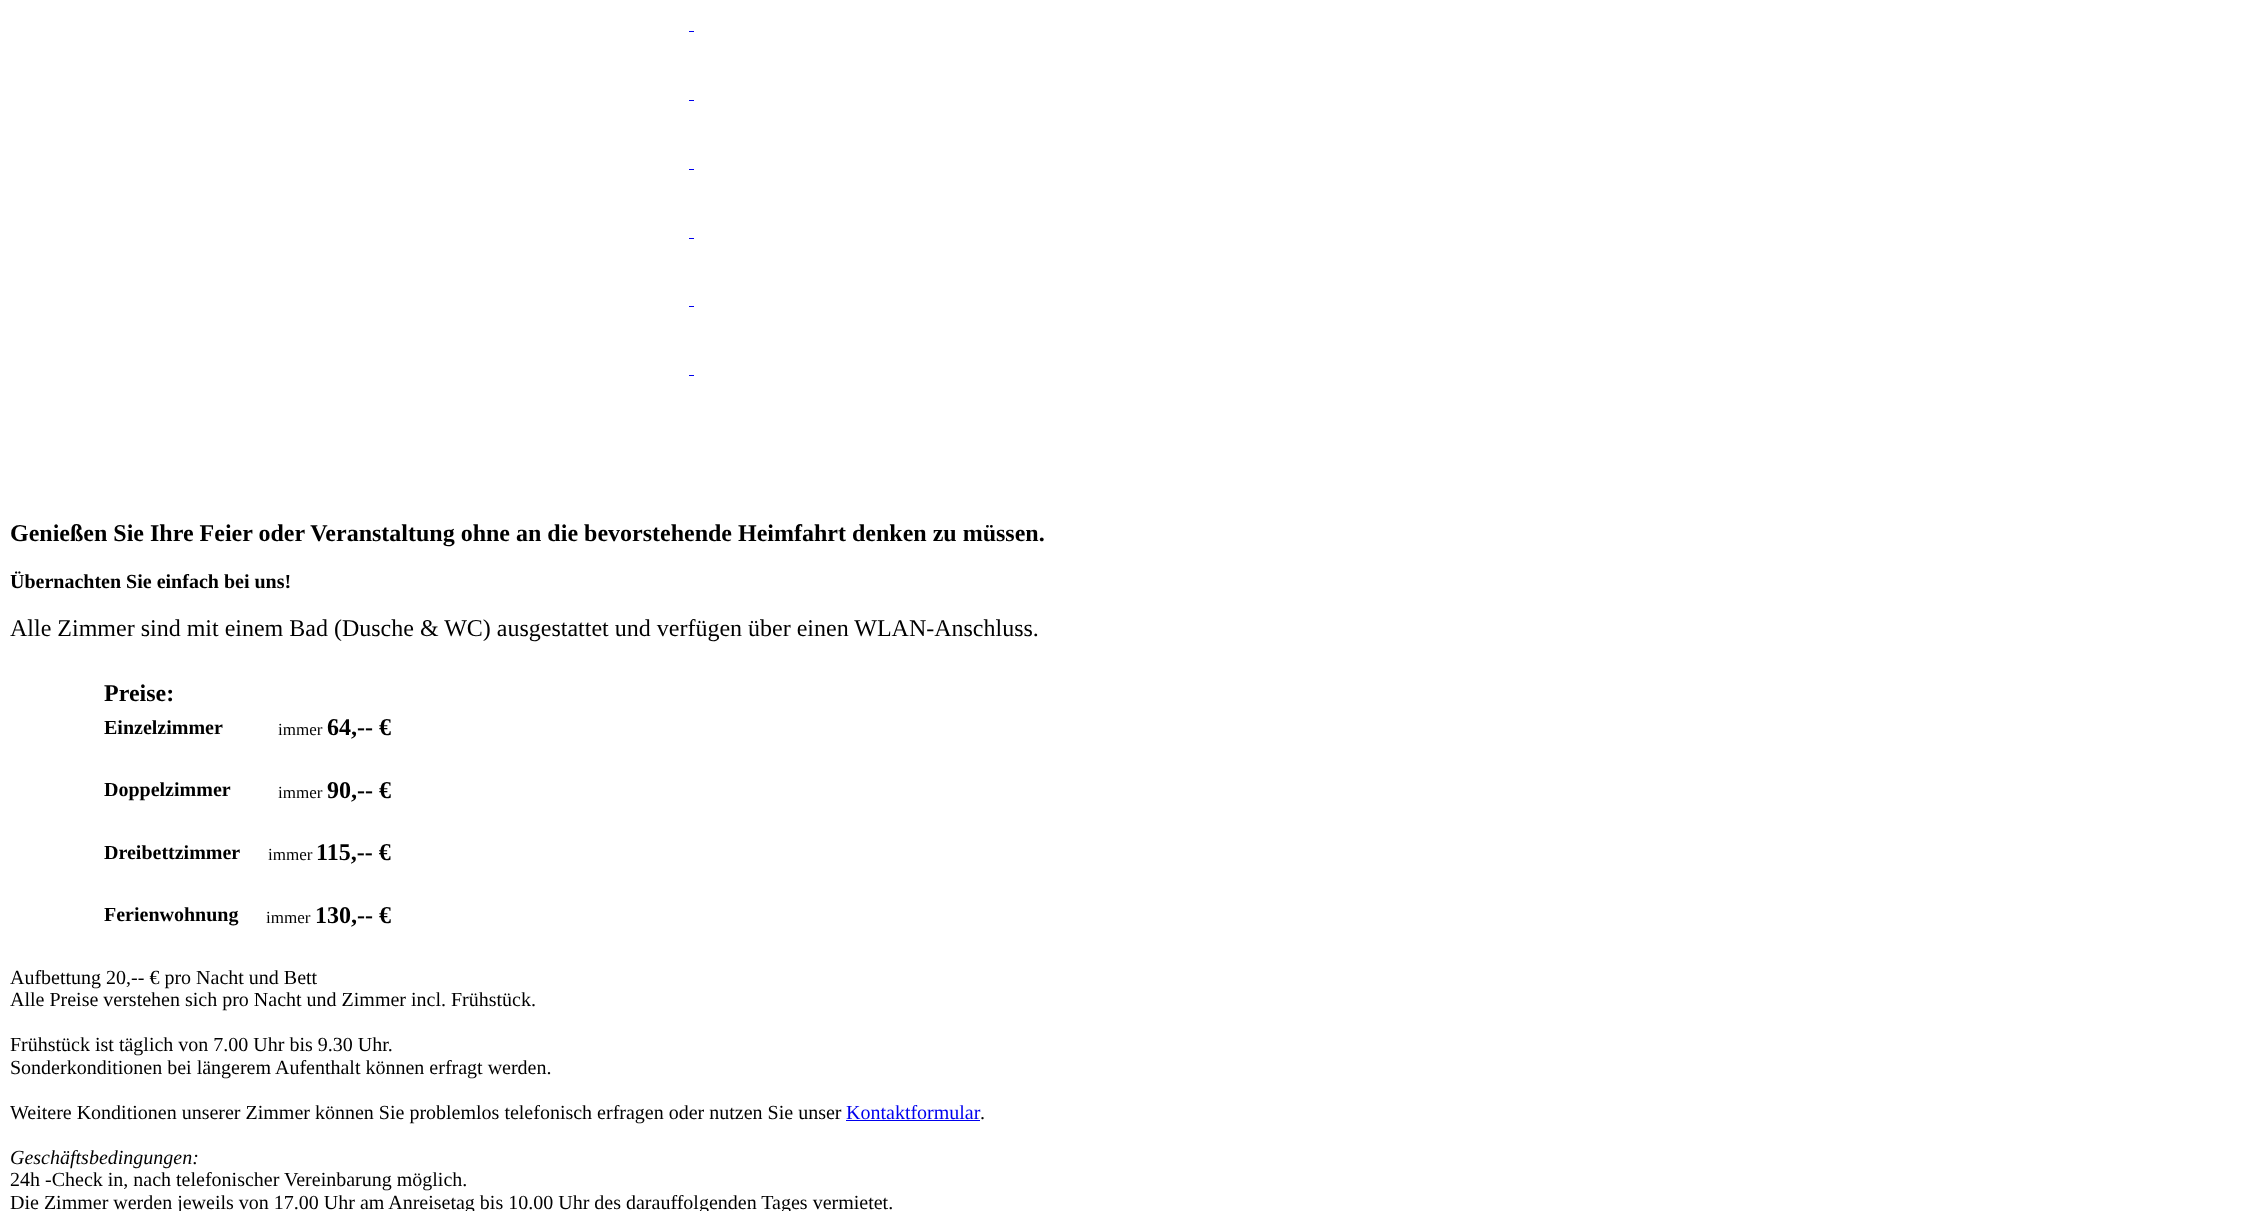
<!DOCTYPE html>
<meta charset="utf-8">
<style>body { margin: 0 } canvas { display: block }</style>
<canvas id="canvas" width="2268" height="1211"></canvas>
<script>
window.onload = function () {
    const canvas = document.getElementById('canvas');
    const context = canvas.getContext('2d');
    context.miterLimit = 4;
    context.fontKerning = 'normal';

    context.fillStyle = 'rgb(255, 255, 255)';
    context.fillRect(0, 0, 2268, 1211);
    context.fillStyle = 'rgb(0, 0, 238)';
    context.fillRect(689, 31, 5, 1);
    context.fillRect(689, 100, 5, 1);
    context.fillRect(689, 169, 5, 1);
    context.fillRect(689, 238, 5, 1);
    context.fillRect(689, 306, 5, 1);
    context.fillRect(689, 375, 5, 1);
    context.fillRect(846, 1120, 134, 1);
    context.font = 'bold 24px Liberation Serif';
    context.fillStyle = 'rgb(0, 0, 0)';
    context.fillText('Genießen Sie Ihre Feier oder Veranstaltung ohne an die bevorstehende Heimfahrt denken zu müssen.', 10, 541);
    context.font = 'bold 20px Liberation Serif';
    context.fillText('Übernachten Sie einfach bei uns!', 10, 588);
    context.font = '24px Liberation Serif';
    context.fillText('Alle Zimmer sind mit einem Bad (Dusche & WC) ausgestattet und verfügen über einen WLAN-Anschluss.', 10, 636);
    context.font = 'bold 24px Liberation Serif';
    context.fillText('Preise:', 104, 701);
    context.font = 'bold 20px Liberation Serif';
    context.fillText('Einzelzimmer', 104, 734);
    context.font = '17px Liberation Serif';
    context.fillText('immer', 278, 735);
    context.font = 'bold 24px Liberation Serif';
    context.fillText('64,-- €', 327, 735);
    context.font = 'bold 20px Liberation Serif';
    context.fillText('Doppelzimmer', 104, 796);
    context.font = '17px Liberation Serif';
    context.fillText('immer', 278, 798);
    context.font = 'bold 24px Liberation Serif';
    context.fillText('90,-- €', 327, 798);
    context.font = 'bold 20px Liberation Serif';
    context.fillText('Dreibettzimmer', 104, 859);
    context.font = '17px Liberation Serif';
    context.fillText('immer', 268, 860);
    context.font = 'bold 24px Liberation Serif';
    context.fillText('115,-- €', 316, 860);
    context.font = 'bold 20px Liberation Serif';
    context.fillText('Ferienwohnung', 104, 921);
    context.font = '17px Liberation Serif';
    context.fillText('immer', 266, 923);
    context.font = 'bold 24px Liberation Serif';
    context.fillText('130,-- €', 315, 923);
    context.font = '20px Liberation Serif';
    context.fillText('Aufbettung 20,-- € pro Nacht und Bett', 10, 984);
    context.fillText('Alle Preise verstehen sich pro Nacht und Zimmer incl. Frühstück.', 10, 1006);
    context.fillText('Frühstück ist täglich von 7.00 Uhr bis 9.30 Uhr.', 10, 1051);
    context.fillText('Sonderkonditionen bei längerem Aufenthalt können erfragt werden.', 10, 1074);
    context.fillText('Weitere Konditionen unserer Zimmer können Sie problemlos telefonisch erfragen oder nutzen Sie unser', 10, 1119);
    context.fillStyle = 'rgb(0, 0, 238)';
    context.fillText('Kontaktformular', 846, 1119);
    context.fillStyle = 'rgb(0, 0, 0)';
    context.fillText('.', 980, 1119);
    context.font = 'italic 20px Liberation Serif';
    context.fillText('Geschäftsbedingungen:', 10, 1164);
    context.font = '20px Liberation Serif';
    context.fillText('24h -Check in, nach telefonischer Vereinbarung möglich.', 10, 1186);
    context.fillText('Die Zimmer werden jeweils von 17.00 Uhr am Anreisetag bis 10.00 Uhr des darauffolgenden Tages vermietet.', 10, 1209);
};
</script>
